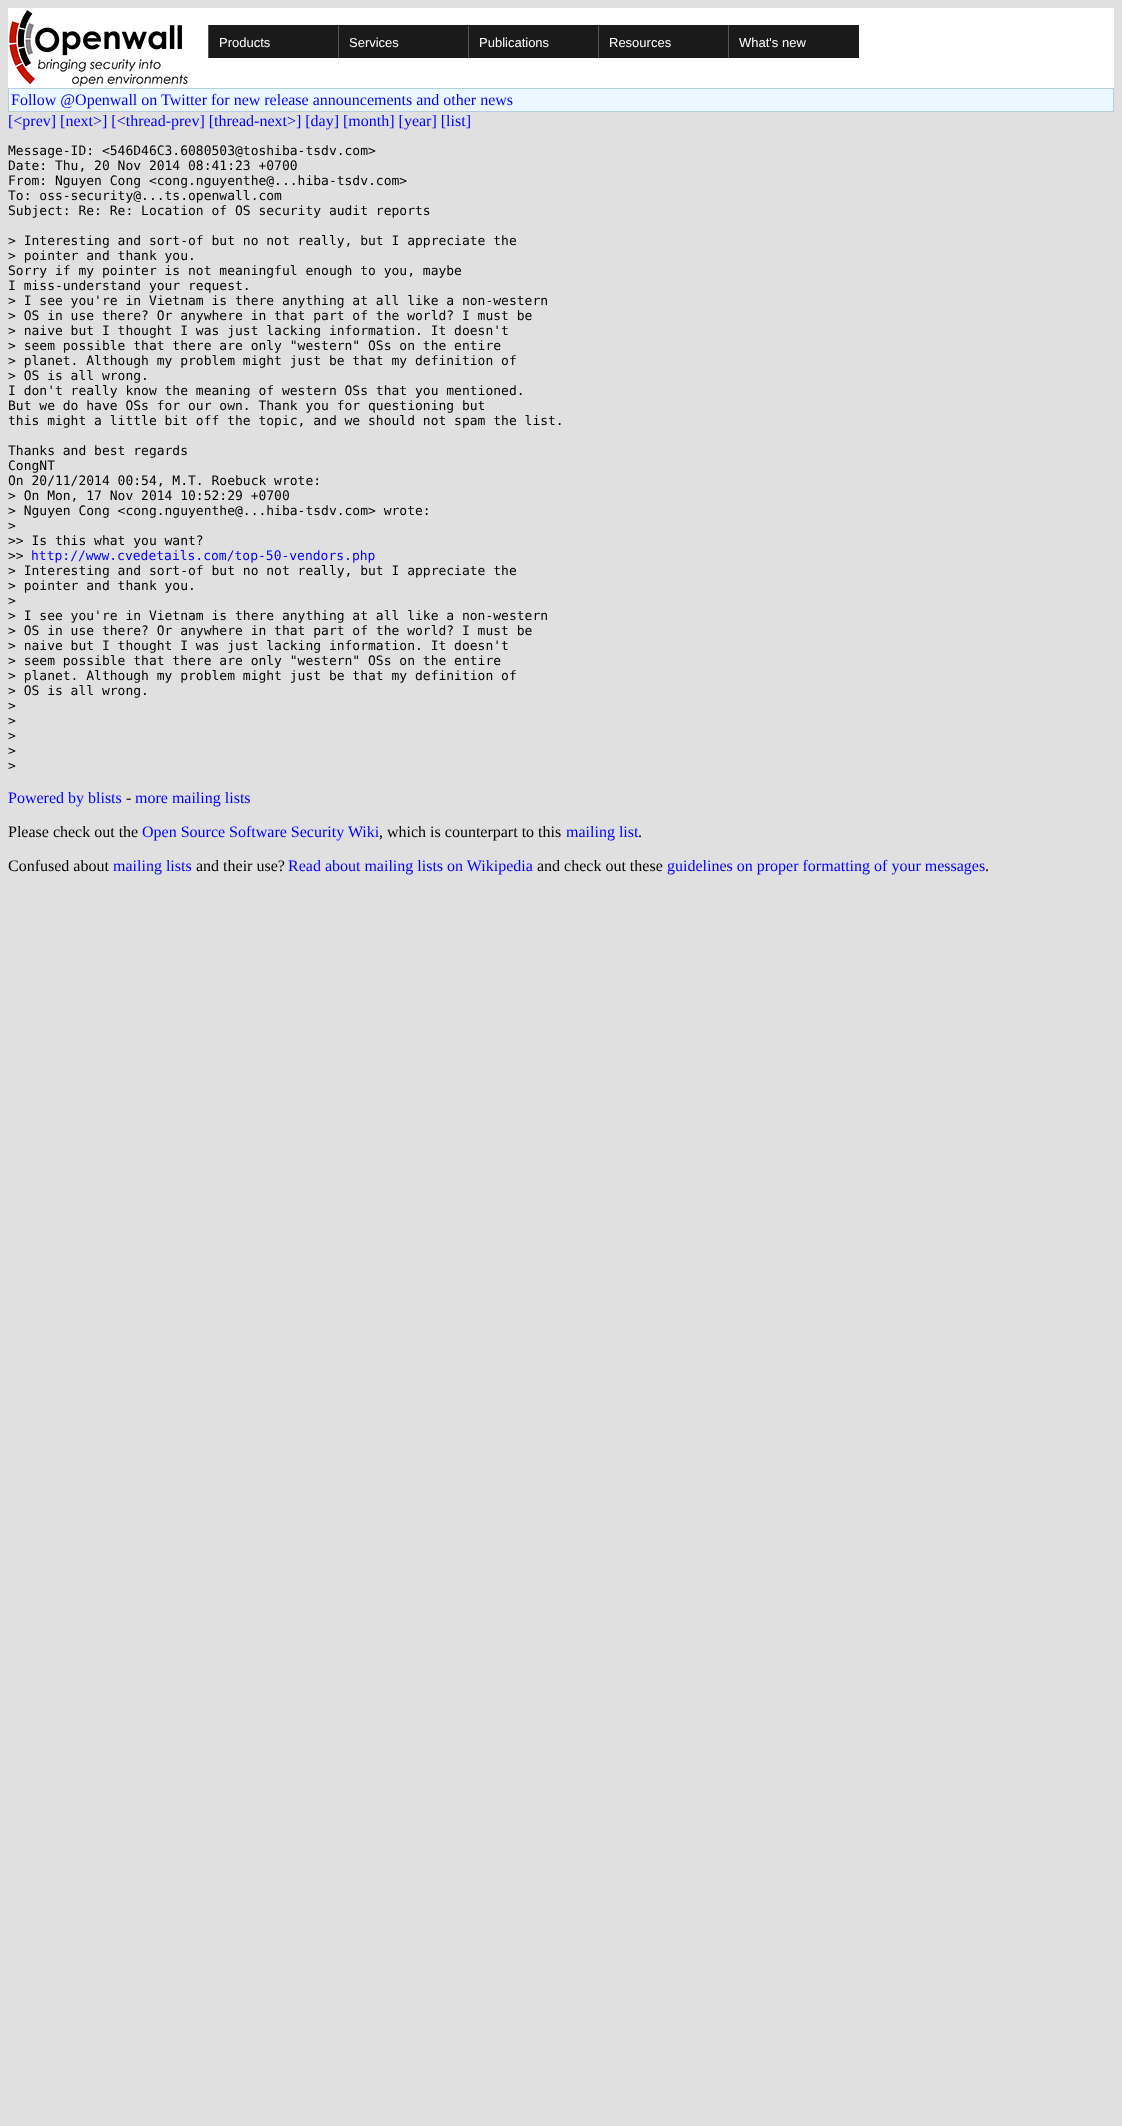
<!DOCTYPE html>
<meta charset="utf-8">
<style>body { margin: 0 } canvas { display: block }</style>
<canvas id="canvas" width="1122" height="2126"></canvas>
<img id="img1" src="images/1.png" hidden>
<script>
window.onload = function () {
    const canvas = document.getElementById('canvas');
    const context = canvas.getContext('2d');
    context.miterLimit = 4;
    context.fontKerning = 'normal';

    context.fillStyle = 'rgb(224, 224, 224)';
    context.fillRect(0, 0, 1122, 2126);
    context.fillStyle = 'rgb(255, 255, 255)';
    context.fillRect(8, 8, 1106, 80);
    context.drawImage(document.getElementById('img1'), 9, 10, 179, 77);
    context.fillStyle = 'rgb(26, 26, 26)';
    context.fillRect(209, 25, 129, 33);
    context.fillStyle = 'rgb(85, 85, 85)';
    context.fillRect(208, 25, 1, 33);
    context.fillStyle = 'rgb(26, 26, 26)';
    context.fillRect(339, 25, 129, 33);
    context.fillStyle = 'rgb(85, 85, 85)';
    context.fillRect(338, 25, 1, 33);
    context.fillStyle = 'rgb(26, 26, 26)';
    context.fillRect(469, 25, 129, 33);
    context.fillStyle = 'rgb(85, 85, 85)';
    context.fillRect(468, 25, 1, 33);
    context.fillStyle = 'rgb(26, 26, 26)';
    context.fillRect(599, 25, 129, 33);
    context.fillStyle = 'rgb(85, 85, 85)';
    context.fillRect(598, 25, 1, 33);
    context.fillStyle = 'rgb(26, 26, 26)';
    context.fillRect(729, 25, 130, 33);
    context.fillStyle = 'rgb(85, 85, 85)';
    context.fillRect(728, 25, 1, 33);
    context.fillStyle = 'rgb(180, 208, 220)';
    context.fillRect(8, 88, 1106, 24);
    context.fillStyle = 'rgb(236, 248, 255)';
    context.fillRect(9, 89, 1104, 22);
    context.font = '13px Liberation Sans';
    context.fillStyle = 'rgb(255, 255, 255)';
    context.fillText('Products', 219, 47);
    context.fillText('Services', 349, 47);
    context.fillText('Publications', 479, 47);
    context.fillText('Resources', 609, 47);
    context.fillText('What\'s new', 739, 47);
    context.font = '16px Liberation Serif';
    context.fillStyle = 'rgb(0, 0, 255)';
    context.fillText('Follow @Openwall on Twitter for new release announcements and other news', 11, 105);
    context.fillText('[<prev] [next>] [<thread-prev] [thread-next>] [day] [month] [year] [list]', 8, 126);
    context.font = '13px DejaVu Sans Mono';
    context.fillStyle = 'rgb(0, 0, 0)';
    context.fillText('Message-ID: <546D46C3.6080503@toshiba-tsdv.com>', 8, 155);
    context.fillText('Date: Thu, 20 Nov 2014 08:41:23 +0700', 8, 170);
    context.fillText('From: Nguyen Cong <cong.nguyenthe@...hiba-tsdv.com>', 8, 185);
    context.fillText('To: oss-security@...ts.openwall.com', 8, 200);
    context.fillText('Subject: Re: Re: Location of OS security audit reports', 8, 215);
    context.fillText('> Interesting and sort-of but no not really, but I appreciate the', 8, 245);
    context.fillText('> pointer and thank you.', 8, 260);
    context.fillText('Sorry if my pointer is not meaningful enough to you, maybe', 8, 275);
    context.fillText('I miss-understand your request.', 8, 290);
    context.fillText('> I see you\'re in Vietnam is there anything at all like a non-western', 8, 305);
    context.fillText('> OS in use there? Or anywhere in that part of the world? I must be', 8, 320);
    context.fillText('> naive but I thought I was just lacking information. It doesn\'t', 8, 335);
    context.fillText('> seem possible that there are only "western" OSs on the entire', 8, 350);
    context.fillText('> planet. Although my problem might just be that my definition of', 8, 365);
    context.fillText('> OS is all wrong.', 8, 380);
    context.fillText('I don\'t really know the meaning of western OSs that you mentioned.', 8, 395);
    context.fillText('But we do have OSs for our own. Thank you for questioning but', 8, 410);
    context.fillText('this might a little bit off the topic, and we should not spam the list.', 8, 425);
    context.fillText('Thanks and best regards', 8, 455);
    context.fillText('CongNT', 8, 470);
    context.fillText('On 20/11/2014 00:54, M.T. Roebuck wrote:', 8, 485);
    context.fillText('> On Mon, 17 Nov 2014 10:52:29 +0700', 8, 500);
    context.fillText('> Nguyen Cong <cong.nguyenthe@...hiba-tsdv.com> wrote:', 8, 515);
    context.fillText('>', 8, 530);
    context.fillText('>> Is this what you want?', 8, 545);
    context.fillText('>>', 8, 560);
    context.fillStyle = 'rgb(0, 0, 255)';
    context.fillText('http://www.cvedetails.com/top-50-vendors.php', 31, 560);
    context.fillStyle = 'rgb(0, 0, 0)';
    context.fillText('> Interesting and sort-of but no not really, but I appreciate the', 8, 575);
    context.fillText('> pointer and thank you.', 8, 590);
    context.fillText('>', 8, 605);
    context.fillText('> I see you\'re in Vietnam is there anything at all like a non-western', 8, 620);
    context.fillText('> OS in use there? Or anywhere in that part of the world? I must be', 8, 635);
    context.fillText('> naive but I thought I was just lacking information. It doesn\'t', 8, 650);
    context.fillText('> seem possible that there are only "western" OSs on the entire', 8, 665);
    context.fillText('> planet. Although my problem might just be that my definition of', 8, 680);
    context.fillText('> OS is all wrong.', 8, 695);
    context.fillText('>', 8, 710);
    context.fillText('>', 8, 725);
    context.fillText('>', 8, 740);
    context.fillText('>', 8, 755);
    context.fillText('>', 8, 770);
    context.font = '16px Liberation Serif';
    context.fillStyle = 'rgb(0, 0, 255)';
    context.fillText('Powered by blists', 8, 803);
    context.fillStyle = 'rgb(0, 0, 0)';
    context.fillText('-', 126, 803);
    context.fillStyle = 'rgb(0, 0, 255)';
    context.fillText('more mailing lists', 135, 803);
    context.fillStyle = 'rgb(0, 0, 0)';
    context.fillText('Please check out the', 8, 837);
    context.fillStyle = 'rgb(0, 0, 255)';
    context.fillText('Open Source Software Security Wiki', 142, 837);
    context.fillStyle = 'rgb(0, 0, 0)';
    context.fillText(', which is counterpart to this', 379, 837);
    context.fillStyle = 'rgb(0, 0, 255)';
    context.fillText('mailing list', 566, 837);
    context.fillStyle = 'rgb(0, 0, 0)';
    context.fillText('.', 638, 837);
    context.fillText('Confused about', 8, 871);
    context.fillStyle = 'rgb(0, 0, 255)';
    context.fillText('mailing lists', 113, 871);
    context.fillStyle = 'rgb(0, 0, 0)';
    context.fillText('and their use?', 196, 871);
    context.fillStyle = 'rgb(0, 0, 255)';
    context.fillText('Read about mailing lists on Wikipedia', 288, 871);
    context.fillStyle = 'rgb(0, 0, 0)';
    context.fillText('and check out these', 537, 871);
    context.fillStyle = 'rgb(0, 0, 255)';
    context.fillText('guidelines on proper formatting of your messages', 667, 871);
    context.fillStyle = 'rgb(0, 0, 0)';
    context.fillText('.', 985, 871);
};
</script>
